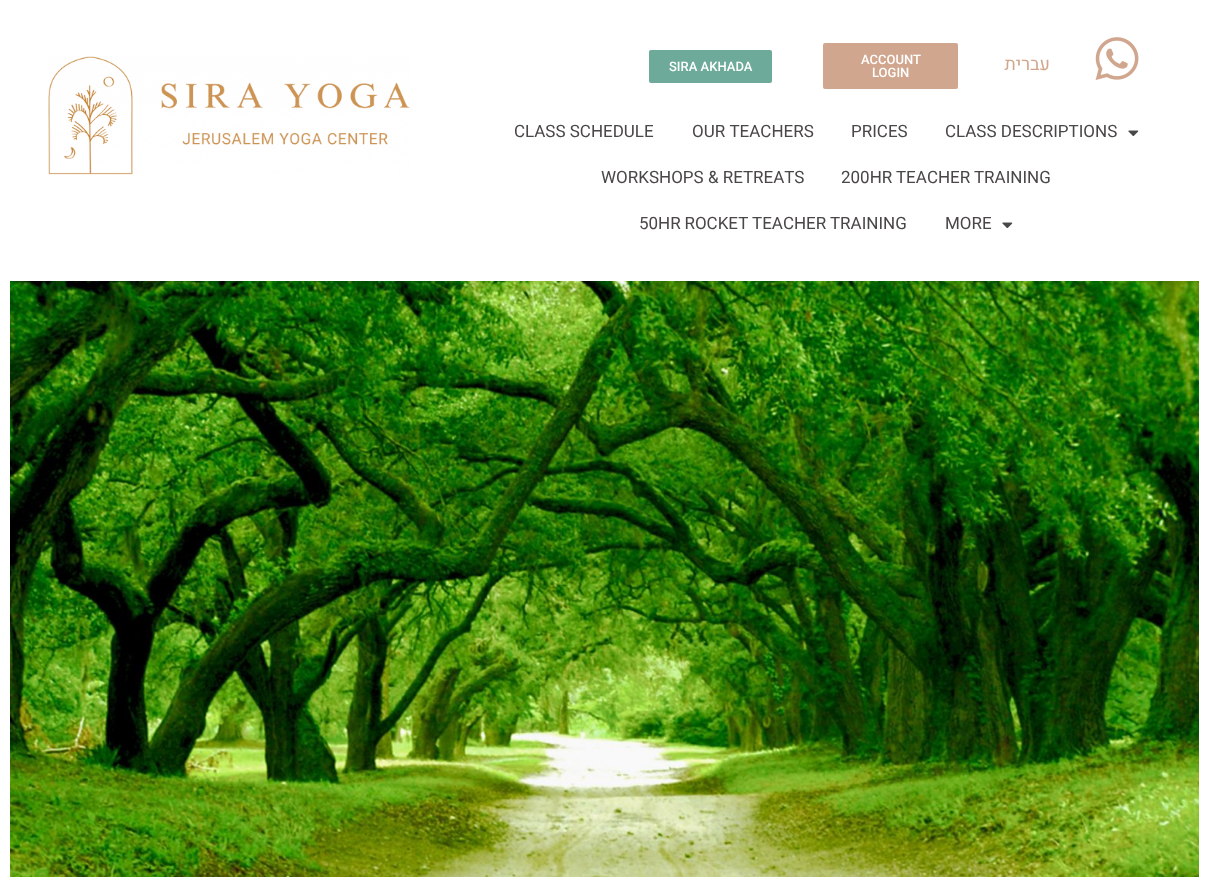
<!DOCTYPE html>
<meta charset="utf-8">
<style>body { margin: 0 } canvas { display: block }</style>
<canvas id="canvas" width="1209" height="877"></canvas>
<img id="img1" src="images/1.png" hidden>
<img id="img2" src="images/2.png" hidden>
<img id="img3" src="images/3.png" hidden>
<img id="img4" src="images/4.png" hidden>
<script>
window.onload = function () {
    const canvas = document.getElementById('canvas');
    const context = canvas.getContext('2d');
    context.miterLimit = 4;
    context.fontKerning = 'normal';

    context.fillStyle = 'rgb(255, 255, 255)';
    context.fillRect(0, 0, 1209, 877);
    context.drawImage(document.getElementById('img1'), 48, 56, 362, 119);
    context.fillStyle = 'rgb(109, 170, 153)';
    context.beginPath();
    context.roundRect(649, 50, 123, 33, 2);
    context.fill();
    context.fillStyle = 'rgb(209, 166, 142)';
    context.beginPath();
    context.roundRect(823, 43, 135, 46, 2);
    context.fill();
    context.drawImage(document.getElementById('img2'), 1095, 37, 44, 43);
    context.drawImage(document.getElementById('img3'), 1128, 130, 11, 7);
    context.drawImage(document.getElementById('img3'), 1002, 222, 11, 7);
    context.drawImage(document.getElementById('img4'), 10, 281, 1189, 596);
    context.font = '500 13px Roboto';
    context.fillStyle = 'rgb(255, 255, 255)';
    context.fillText('SIRA AKHADA', 669, 71);
    context.fillText('ACCOUNT', 861, 64);
    context.fillText('LOGIN', 872, 77);
    context.direction = 'rtl';
    context.font = '18px Heebo';
    context.fillStyle = 'rgb(209, 166, 142)';
    context.fillText('עברית', 1050, 70);
    context.direction = 'ltr';
    context.font = '17px Heebo';
    context.fillStyle = 'rgb(74, 71, 71)';
    context.fillText('CLASS SCHEDULE', 514, 137);
    context.fillText('OUR TEACHERS', 692, 137);
    context.fillText('PRICES', 851, 137);
    context.fillText('CLASS DESCRIPTIONS', 945, 137);
    context.fillText('WORKSHOPS & RETREATS', 601, 183);
    context.wordSpacing = '-0.5px';
    context.fillText('200HR TEACHER TRAINING', 841, 183);
    context.fillText('50HR ROCKET TEACHER TRAINING', 639, 229);
    context.wordSpacing = '0px';
    context.fillText('MORE', 945, 229);
};
</script>
